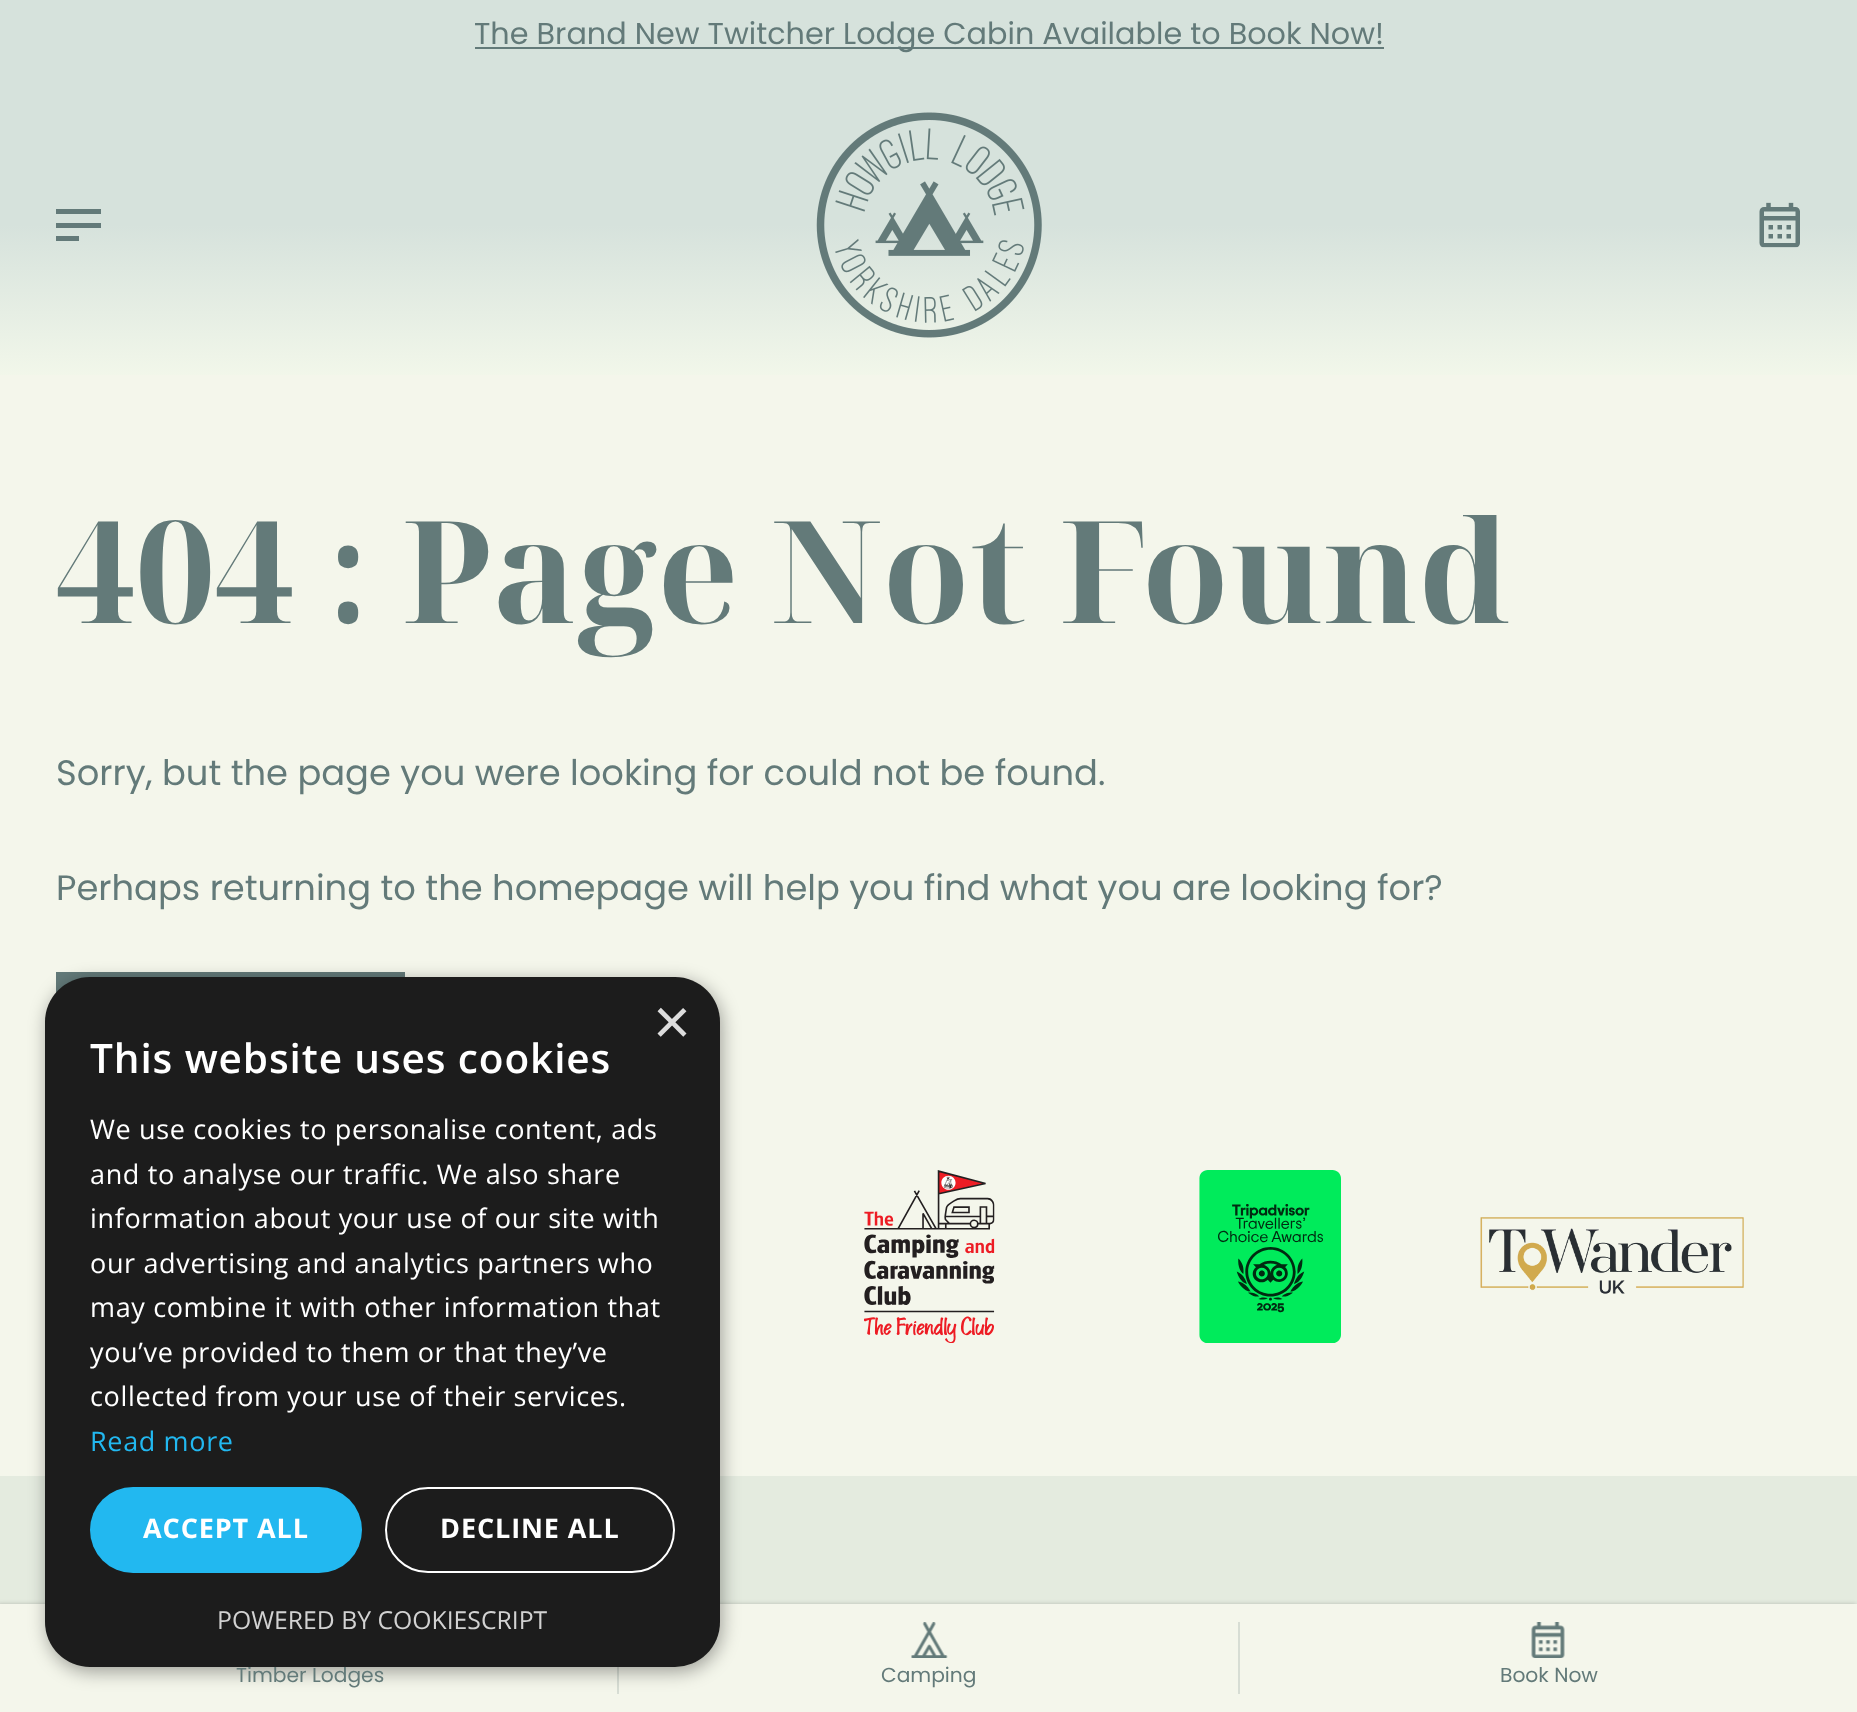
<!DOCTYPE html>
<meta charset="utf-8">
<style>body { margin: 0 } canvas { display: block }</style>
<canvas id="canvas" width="1857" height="1712"></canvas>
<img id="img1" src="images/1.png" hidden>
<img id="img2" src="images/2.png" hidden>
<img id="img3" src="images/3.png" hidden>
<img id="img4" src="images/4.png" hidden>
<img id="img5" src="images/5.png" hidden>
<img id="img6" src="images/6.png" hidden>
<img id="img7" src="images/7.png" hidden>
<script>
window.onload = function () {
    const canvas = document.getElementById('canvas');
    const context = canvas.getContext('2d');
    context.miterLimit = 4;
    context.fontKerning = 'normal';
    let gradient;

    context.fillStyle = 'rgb(244, 246, 235)';
    context.fillRect(0, 0, 1857, 1712);
    context.fillStyle = 'rgb(214, 226, 220)';
    context.fillRect(0, 0, 1857, 72);
    context.fillStyle = 'rgb(99, 122, 121)';
    context.fillRect(475, 47, 909, 2);
    gradient = context.createLinearGradient(929, 72, 929, 378);
    gradient.addColorStop(0.5, 'rgb(214, 226, 220)');
    gradient.addColorStop(1, 'rgb(242, 247, 234)');
    context.fillStyle = gradient;
    context.fillRect(0, 72, 1857, 303);
    context.fillStyle = 'rgb(99, 122, 121)';
    context.fillRect(56, 223, 45, 5);
    context.fillRect(56, 209, 45, 5);
    context.fillRect(56, 236, 23, 5);
    context.drawImage(document.getElementById('img1'), 816, 112, 226, 226);
    context.drawImage(document.getElementById('img2'), 1759, 202, 41, 46);
    context.fillRect(56, 972, 349, 21);
    context.fillStyle = 'rgb(228, 235, 223)';
    context.fillRect(0, 1476, 1857, 128);
    context.fillStyle = 'rgba(0, 0, 0, 0.2)';
    context.filter = 'blur(2px)';
    context.beginPath();
    context.rect(-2, 1604, 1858, 108);
    context.fill();
    context.filter = 'none';
    context.fillStyle = 'rgb(244, 246, 235)';
    context.fillRect(0, 1604, 1857, 108);
    context.fillStyle = 'rgb(215, 221, 212)';
    context.fillRect(617, 1667, 2, 27);
    context.fillStyle = 'rgba(0, 0, 0, 0.35)';
    context.filter = 'blur(9px)';
    context.beginPath();
    context.roundRect(47, 981, 675, 691, 45);
    context.fill();
    context.filter = 'none';
    context.drawImage(document.getElementById('img3'), 864, 1170, 131, 173);
    context.drawImage(document.getElementById('img4'), 1199, 1170, 142, 173);
    context.drawImage(document.getElementById('img5'), 1480, 1217, 264, 77);
    context.drawImage(document.getElementById('img6'), 911, 1622, 37, 36);
    context.fillStyle = 'rgb(215, 221, 212)';
    context.fillRect(1238, 1622, 2, 72);
    context.drawImage(document.getElementById('img7'), 1531, 1622, 34, 36);
    context.font = '30.25px Poppins';
    context.fillStyle = 'rgb(99, 122, 121)';
    context.fillText('The Brand New Twitcher Lodge Cabin Available to Book Now!', 474, 44);
    context.font = 'bold 142.2px Noto Serif Display';
    context.fillText('404 : Page Not Found', 56, 623);
    context.font = '35.3px Poppins';
    context.fillText('Sorry, but the page you were looking for could not be found.', 56, 785);
    context.fillText('Perhaps returning to the homepage will help you find what you are looking for?', 56, 900);
    context.font = '20.25px Poppins';
    context.fillText('Timber Lodges', 236, 1682);
    context.fillStyle = 'rgb(28, 28, 28)';
    context.beginPath();
    context.roundRect(45, 977, 675, 690, 45);
    context.fill();
    context.font = '65px Liberation Sans';
    context.fillStyle = 'rgb(221, 221, 221)';
    context.fillText('×', 653, 1044);
    context.font = '24.75px Open Sans';
    context.fillStyle = 'rgb(210, 210, 210)';
    context.fillText('POWERED BY COOKIESCRIPT', 217, 1629);
    context.beginPath();
    context.roundRect(386, 1488, 288, 84, 42);
    context.strokeStyle = 'rgb(255, 255, 255)';
    context.lineWidth = 2;
    context.stroke();
    context.letterSpacing = '0.9px';
    context.font = 'bold 27px Open Sans';
    context.fillStyle = 'rgb(255, 255, 255)';
    context.fillText('DECLINE ALL', 440, 1538);
    context.fillStyle = 'rgb(34, 184, 240)';
    context.beginPath();
    context.roundRect(90, 1487, 272, 86, 43);
    context.fill();
    context.fillStyle = 'rgb(255, 255, 255)';
    context.fillText('ACCEPT ALL', 143, 1538);
    context.letterSpacing = '0.65px';
    context.font = '27px Open Sans';
    context.fillStyle = 'rgb(34, 184, 240)';
    context.fillText('Read more', 90, 1451);
    context.fillStyle = 'rgb(255, 255, 255)';
    context.fillText('collected from your use of their services.', 90, 1406);
    context.fillText('you’ve provided to them or that they’ve', 90, 1362);
    context.fillText('may combine it with other information that', 90, 1317);
    context.fillText('our advertising and analytics partners who', 90, 1273);
    context.fillText('information about your use of our site with', 90, 1228);
    context.fillText('and to analyse our traffic. We also share', 90, 1184);
    context.fillText('We use cookies to personalise content, ads', 90, 1139);
    context.letterSpacing = '0.9px';
    context.font = '600 40.5px Open Sans';
    context.fillText('This website uses cookies', 90, 1073);
    context.letterSpacing = '0px';
    context.font = '20.25px Poppins';
    context.fillStyle = 'rgb(99, 122, 121)';
    context.fillText('Camping', 881, 1682);
    context.fillText('Book Now', 1500, 1682);
};
</script>
